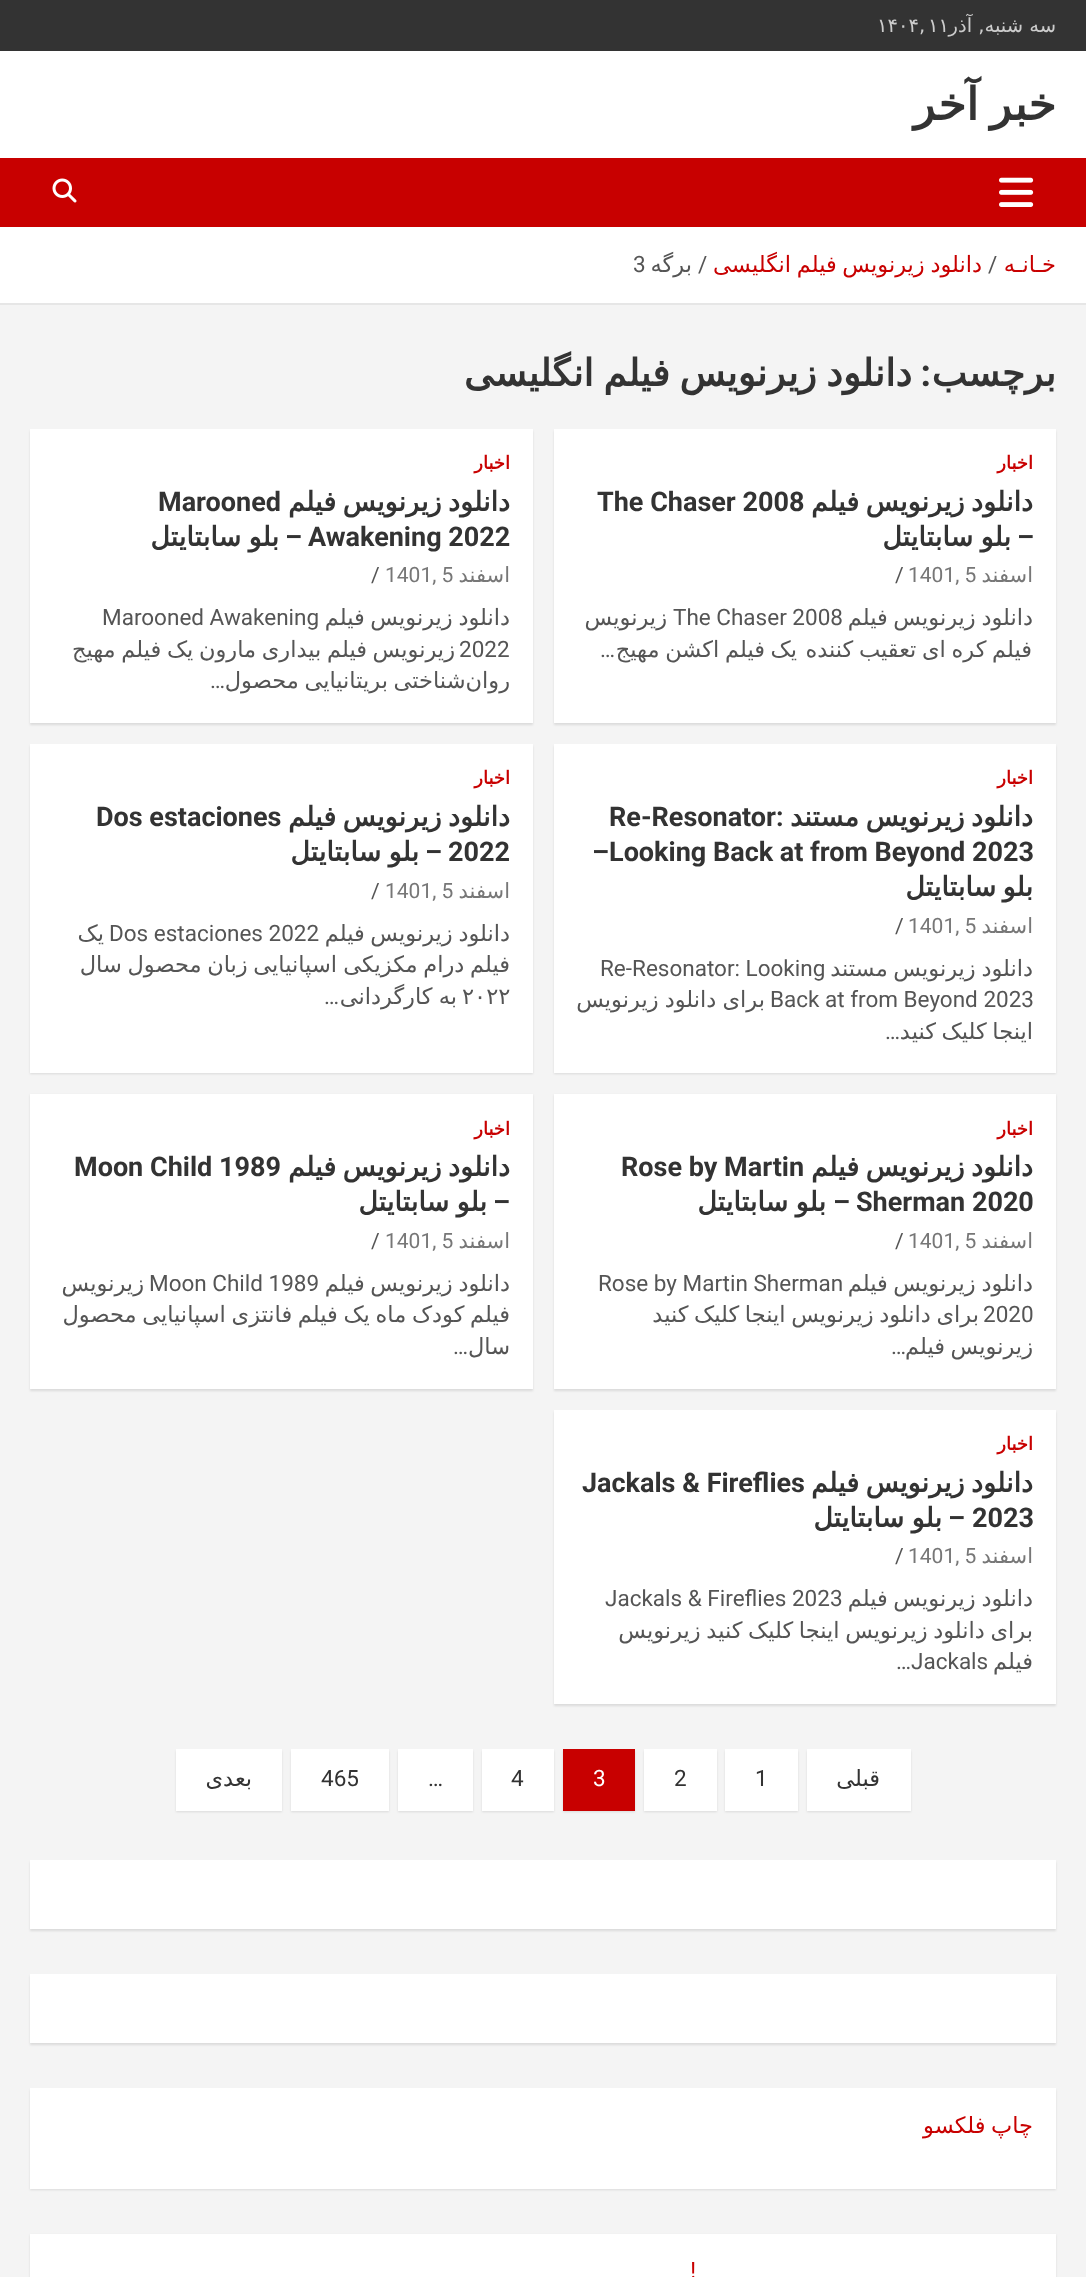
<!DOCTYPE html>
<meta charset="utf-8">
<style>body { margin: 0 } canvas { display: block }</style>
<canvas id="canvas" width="1086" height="2277"></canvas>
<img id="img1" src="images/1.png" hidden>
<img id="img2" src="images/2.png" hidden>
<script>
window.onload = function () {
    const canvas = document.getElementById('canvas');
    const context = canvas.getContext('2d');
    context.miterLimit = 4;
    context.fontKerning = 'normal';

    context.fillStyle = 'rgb(244, 244, 244)';
    context.fillRect(0, 0, 1086, 2277);
    context.fillStyle = 'rgb(51, 51, 51)';
    context.fillRect(0, 0, 1086, 51);
    context.fillStyle = 'rgb(255, 255, 255)';
    context.fillRect(0, 51, 1086, 107);
    context.fillStyle = 'rgb(200, 0, 0)';
    context.fillRect(0, 158, 1086, 69);
    context.drawImage(document.getElementById('img1'), 999, 177, 35, 30);
    context.drawImage(document.getElementById('img2'), 52, 178, 25, 25);
    context.fillStyle = 'rgb(255, 255, 255)';
    context.fillRect(0, 227, 1086, 76);
    context.fillStyle = 'rgb(230, 230, 230)';
    context.fillRect(0, 303, 1086, 2);
    context.fillStyle = 'rgba(0, 0, 0, 0.1)';
    context.filter = 'blur(1px)';
    context.beginPath();
    context.rect(554, 431, 502, 294);
    context.fill();
    context.filter = 'none';
    context.fillStyle = 'rgb(255, 255, 255)';
    context.fillRect(554, 429, 502, 294);
    context.fillStyle = 'rgba(0, 0, 0, 0.1)';
    context.filter = 'blur(1px)';
    context.beginPath();
    context.rect(30, 431, 503, 294);
    context.fill();
    context.filter = 'none';
    context.fillStyle = 'rgb(255, 255, 255)';
    context.fillRect(30, 429, 503, 294);
    context.fillStyle = 'rgba(0, 0, 0, 0.1)';
    context.filter = 'blur(1px)';
    context.beginPath();
    context.rect(554, 746, 502, 328);
    context.fill();
    context.filter = 'none';
    context.fillStyle = 'rgb(255, 255, 255)';
    context.fillRect(554, 744, 502, 329);
    context.fillStyle = 'rgba(0, 0, 0, 0.1)';
    context.filter = 'blur(1px)';
    context.beginPath();
    context.rect(30, 746, 503, 328);
    context.fill();
    context.filter = 'none';
    context.fillStyle = 'rgb(255, 255, 255)';
    context.fillRect(30, 744, 503, 329);
    context.fillStyle = 'rgba(0, 0, 0, 0.1)';
    context.filter = 'blur(1px)';
    context.beginPath();
    context.rect(554, 1095, 502, 296);
    context.fill();
    context.filter = 'none';
    context.fillStyle = 'rgb(255, 255, 255)';
    context.fillRect(554, 1094, 502, 295);
    context.fillStyle = 'rgba(0, 0, 0, 0.1)';
    context.filter = 'blur(1px)';
    context.beginPath();
    context.rect(30, 1095, 503, 296);
    context.fill();
    context.filter = 'none';
    context.fillStyle = 'rgb(255, 255, 255)';
    context.fillRect(30, 1094, 503, 295);
    context.fillStyle = 'rgba(0, 0, 0, 0.1)';
    context.filter = 'blur(1px)';
    context.beginPath();
    context.rect(554, 1412, 502, 294);
    context.fill();
    context.filter = 'none';
    context.fillStyle = 'rgb(255, 255, 255)';
    context.fillRect(554, 1410, 502, 294);
    context.fillStyle = 'rgba(0, 0, 0, 0.1)';
    context.filter = 'blur(1px)';
    context.beginPath();
    context.rect(807, 1751, 104, 61);
    context.fill();
    context.filter = 'none';
    context.fillStyle = 'rgb(255, 255, 255)';
    context.fillRect(807, 1749, 104, 62);
    context.fillStyle = 'rgba(0, 0, 0, 0.1)';
    context.filter = 'blur(1px)';
    context.beginPath();
    context.rect(725, 1751, 73, 61);
    context.fill();
    context.filter = 'none';
    context.fillStyle = 'rgb(255, 255, 255)';
    context.fillRect(725, 1749, 73, 62);
    context.fillStyle = 'rgba(0, 0, 0, 0.1)';
    context.filter = 'blur(1px)';
    context.beginPath();
    context.rect(644, 1751, 73, 61);
    context.fill();
    context.filter = 'none';
    context.fillStyle = 'rgb(255, 255, 255)';
    context.fillRect(644, 1749, 73, 62);
    context.fillStyle = 'rgba(0, 0, 0, 0.1)';
    context.filter = 'blur(1px)';
    context.beginPath();
    context.rect(563, 1751, 72, 61);
    context.fill();
    context.filter = 'none';
    context.fillStyle = 'rgb(200, 0, 0)';
    context.fillRect(563, 1749, 72, 62);
    context.fillStyle = 'rgba(0, 0, 0, 0.1)';
    context.filter = 'blur(1px)';
    context.beginPath();
    context.rect(482, 1751, 72, 61);
    context.fill();
    context.filter = 'none';
    context.fillStyle = 'rgb(255, 255, 255)';
    context.fillRect(482, 1749, 72, 62);
    context.fillStyle = 'rgba(0, 0, 0, 0.1)';
    context.filter = 'blur(1px)';
    context.beginPath();
    context.rect(398, 1751, 75, 61);
    context.fill();
    context.filter = 'none';
    context.fillStyle = 'rgb(255, 255, 255)';
    context.fillRect(398, 1749, 75, 62);
    context.fillStyle = 'rgba(0, 0, 0, 0.1)';
    context.filter = 'blur(1px)';
    context.beginPath();
    context.rect(291, 1751, 98, 61);
    context.fill();
    context.filter = 'none';
    context.fillStyle = 'rgb(255, 255, 255)';
    context.fillRect(291, 1749, 98, 62);
    context.fillStyle = 'rgba(0, 0, 0, 0.1)';
    context.filter = 'blur(1px)';
    context.beginPath();
    context.rect(176, 1751, 106, 61);
    context.fill();
    context.filter = 'none';
    context.fillStyle = 'rgb(255, 255, 255)';
    context.fillRect(176, 1749, 106, 62);
    context.fillStyle = 'rgba(0, 0, 0, 0.1)';
    context.filter = 'blur(1px)';
    context.beginPath();
    context.rect(30, 1862, 1026, 69);
    context.fill();
    context.filter = 'none';
    context.fillStyle = 'rgb(255, 255, 255)';
    context.fillRect(30, 1860, 1026, 69);
    context.fillStyle = 'rgba(0, 0, 0, 0.1)';
    context.filter = 'blur(1px)';
    context.beginPath();
    context.rect(30, 1976, 1026, 69);
    context.fill();
    context.filter = 'none';
    context.fillStyle = 'rgb(255, 255, 255)';
    context.fillRect(30, 1974, 1026, 69);
    context.fillStyle = 'rgba(0, 0, 0, 0.1)';
    context.filter = 'blur(1px)';
    context.beginPath();
    context.rect(30, 2090, 1026, 100);
    context.fill();
    context.filter = 'none';
    context.fillStyle = 'rgb(255, 255, 255)';
    context.fillRect(30, 2088, 1026, 101);
    context.fillStyle = 'rgba(0, 0, 0, 0.1)';
    context.filter = 'blur(1px)';
    context.beginPath();
    context.rect(30, 2235, 1026, 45);
    context.fill();
    context.filter = 'none';
    context.fillStyle = 'rgb(255, 255, 255)';
    context.fillRect(30, 2234, 1026, 43);
    context.direction = 'rtl';
    context.font = '19.5px DejaVu Sans';
    context.fillStyle = 'rgb(204, 204, 204)';
    context.fillText('سه شنبه, آذر', 1056, 32);
    context.direction = 'ltr';
    context.fillText('۱۱', 928, 32);
    context.fillText('۱۴۰۴,', 877, 32);
    context.wordSpacing = '-3px';
    context.direction = 'rtl';
    context.font = 'bold 45px DejaVu Sans';
    context.fillStyle = 'rgb(51, 51, 51)';
    context.fillText('خبر آخر', 1056, 120);
    context.wordSpacing = '0px';
    context.font = '22.5px DejaVu Sans';
    context.fillStyle = 'rgb(200, 0, 0)';
    context.fillText('خـانـه', 1056, 272);
    context.direction = 'ltr';
    context.font = '22.5px Roboto';
    context.fillStyle = 'rgb(85, 85, 85)';
    context.fillText('/', 988, 272);
    context.wordSpacing = '-1.5px';
    context.direction = 'rtl';
    context.font = '22.5px DejaVu Sans';
    context.fillStyle = 'rgb(200, 0, 0)';
    context.fillText('دانلود زیرنویس فیلم انگلیسی', 982, 272);
    context.wordSpacing = '0px';
    context.direction = 'ltr';
    context.font = '22.5px Roboto';
    context.fillStyle = 'rgb(85, 85, 85)';
    context.fillText('/', 698, 272);
    context.direction = 'rtl';
    context.font = '22.5px DejaVu Sans';
    context.fillText('برگه', 692, 272);
    context.direction = 'ltr';
    context.font = '22.5px Roboto';
    context.fillText('3', 633, 272);
    context.direction = 'rtl';
    context.font = 'bold 37.5px DejaVu Sans';
    context.fillStyle = 'rgb(51, 51, 51)';
    context.fillText('برچسب', 1056, 386);
    context.font = 'bold 37.5px Roboto';
    context.fillText(':', 931, 386);
    context.wordSpacing = '-2.5px';
    context.font = 'bold 37.5px DejaVu Sans';
    context.fillText('دانلود زیرنویس فیلم انگلیسی', 912, 386);
    context.wordSpacing = '0px';
    context.font = 'bold 18px DejaVu Sans';
    context.fillStyle = 'rgb(200, 0, 0)';
    context.fillText('اخبار', 1033, 469);
    context.wordSpacing = '-2px';
    context.font = 'bold 27px DejaVu Sans';
    context.fillStyle = 'rgb(51, 51, 51)';
    context.fillText('دانلود زیرنویس فیلم', 1033, 511);
    context.wordSpacing = '0px';
    context.direction = 'ltr';
    context.font = 'bold 27px Roboto';
    context.fillText('The Chaser 2008', 597, 511);
    context.direction = 'rtl';
    context.fillText('–', 1034, 546);
    context.wordSpacing = '-1px';
    context.font = 'bold 27px DejaVu Sans';
    context.fillText('بلو سابتایتل', 1011, 546);
    context.wordSpacing = '0px';
    context.font = '21px DejaVu Sans';
    context.fillStyle = 'rgb(119, 119, 119)';
    context.fillText('اسفند', 1033, 582);
    context.direction = 'ltr';
    context.font = '21px Roboto';
    context.fillText('1401, 5', 908, 582);
    context.fillStyle = 'rgb(85, 85, 85)';
    context.fillText('/', 895, 582);
    context.wordSpacing = '-1.5px';
    context.direction = 'rtl';
    context.font = '22.5px DejaVu Sans';
    context.fillText('دانلود زیرنویس فیلم', 1033, 625);
    context.wordSpacing = '0px';
    context.direction = 'ltr';
    context.font = '22.5px Roboto';
    context.fillText('The Chaser 2008', 673, 625);
    context.direction = 'rtl';
    context.font = '22.5px DejaVu Sans';
    context.fillText('زیرنویس', 667, 625);
    context.wordSpacing = '-1.5px';
    context.fillText('فیلم کره ای تعقیب کننده', 1032, 657);
    context.fillText('یک فیلم اکشن مهیج', 797, 657);
    context.wordSpacing = '0px';
    context.font = '22.5px Roboto';
    context.fillText('…', 615, 657);
    context.font = 'bold 18px DejaVu Sans';
    context.fillStyle = 'rgb(200, 0, 0)';
    context.fillText('اخبار', 510, 469);
    context.wordSpacing = '-2px';
    context.font = 'bold 27px DejaVu Sans';
    context.fillStyle = 'rgb(51, 51, 51)';
    context.fillText('دانلود زیرنویس فیلم', 510, 511);
    context.wordSpacing = '0px';
    context.direction = 'ltr';
    context.font = 'bold 27px Roboto';
    context.fillText('Marooned', 158, 511);
    context.fillText('Awakening 2022', 308, 546);
    context.direction = 'rtl';
    context.fillText('–', 302, 546);
    context.wordSpacing = '-1px';
    context.font = 'bold 27px DejaVu Sans';
    context.fillText('بلو سابتایتل', 279, 546);
    context.wordSpacing = '0px';
    context.font = '21px DejaVu Sans';
    context.fillStyle = 'rgb(119, 119, 119)';
    context.fillText('اسفند', 510, 582);
    context.direction = 'ltr';
    context.font = '21px Roboto';
    context.fillText('1401, 5', 385, 582);
    context.fillStyle = 'rgb(85, 85, 85)';
    context.fillText('/', 371, 582);
    context.wordSpacing = '-1.5px';
    context.direction = 'rtl';
    context.font = '22.5px DejaVu Sans';
    context.fillText('دانلود زیرنویس فیلم', 510, 625);
    context.wordSpacing = '0px';
    context.direction = 'ltr';
    context.font = '22.5px Roboto';
    context.fillText('Marooned Awakening', 102, 625);
    context.wordSpacing = '-1.5px';
    context.direction = 'rtl';
    context.font = '22.5px DejaVu Sans';
    context.fillText('زیرنویس فیلم بیداری مارون یک فیلم مهیج', 455, 657);
    context.wordSpacing = '0px';
    context.direction = 'ltr';
    context.font = '22.5px Roboto';
    context.fillText('2022', 459, 657);
    context.wordSpacing = '-1.5px';
    context.direction = 'rtl';
    context.font = '22.5px DejaVu Sans';
    context.fillText('روان‌شناختی بریتانیایی محصول', 510, 688);
    context.wordSpacing = '0px';
    context.font = '22.5px Roboto';
    context.fillText('…', 225, 688);
    context.font = 'bold 18px DejaVu Sans';
    context.fillStyle = 'rgb(200, 0, 0)';
    context.fillText('اخبار', 1033, 784);
    context.wordSpacing = '-2px';
    context.font = 'bold 27px DejaVu Sans';
    context.fillStyle = 'rgb(51, 51, 51)';
    context.fillText('دانلود زیرنویس مستند', 1033, 826);
    context.wordSpacing = '0px';
    context.direction = 'ltr';
    context.font = 'bold 27px Roboto';
    context.fillText('Re-Resonator:', 609, 826);
    context.fillText('–Looking Back at from Beyond 2023', 592, 861);
    context.wordSpacing = '-2px';
    context.direction = 'rtl';
    context.font = 'bold 27px DejaVu Sans';
    context.fillText('بلو سابتایتل', 1033, 896);
    context.wordSpacing = '0px';
    context.font = '21px DejaVu Sans';
    context.fillStyle = 'rgb(119, 119, 119)';
    context.fillText('اسفند', 1033, 933);
    context.direction = 'ltr';
    context.font = '21px Roboto';
    context.fillText('1401, 5', 908, 933);
    context.fillStyle = 'rgb(85, 85, 85)';
    context.fillText('/', 895, 933);
    context.wordSpacing = '-1.5px';
    context.direction = 'rtl';
    context.font = '22.5px DejaVu Sans';
    context.fillText('دانلود زیرنویس مستند', 1033, 976);
    context.wordSpacing = '0px';
    context.direction = 'ltr';
    context.font = '22.5px Roboto';
    context.fillText('Re-Resonator: Looking', 600, 976);
    context.fillText('Back at from Beyond 2023', 770, 1007);
    context.wordSpacing = '-1px';
    context.direction = 'rtl';
    context.font = '22.5px DejaVu Sans';
    context.fillText('برای دانلود زیرنویس', 765, 1007);
    context.wordSpacing = '-1.5px';
    context.fillText('اینجا کلیک کنید', 1033, 1039);
    context.wordSpacing = '0px';
    context.font = '22.5px Roboto';
    context.fillText('…', 900, 1039);
    context.font = 'bold 18px DejaVu Sans';
    context.fillStyle = 'rgb(200, 0, 0)';
    context.fillText('اخبار', 510, 784);
    context.wordSpacing = '-2px';
    context.font = 'bold 27px DejaVu Sans';
    context.fillStyle = 'rgb(51, 51, 51)';
    context.fillText('دانلود زیرنویس فیلم', 510, 826);
    context.wordSpacing = '0px';
    context.direction = 'ltr';
    context.font = 'bold 27px Roboto';
    context.fillText('Dos estaciones', 96, 826);
    context.fillText('2022', 448, 861);
    context.direction = 'rtl';
    context.fillText('–', 442, 861);
    context.wordSpacing = '-1px';
    context.font = 'bold 27px DejaVu Sans';
    context.fillText('بلو سابتایتل', 419, 861);
    context.wordSpacing = '0px';
    context.font = '21px DejaVu Sans';
    context.fillStyle = 'rgb(119, 119, 119)';
    context.fillText('اسفند', 510, 898);
    context.direction = 'ltr';
    context.font = '21px Roboto';
    context.fillText('1401, 5', 385, 898);
    context.fillStyle = 'rgb(85, 85, 85)';
    context.fillText('/', 371, 898);
    context.wordSpacing = '-1.5px';
    context.direction = 'rtl';
    context.font = '22.5px DejaVu Sans';
    context.fillText('دانلود زیرنویس فیلم', 510, 941);
    context.wordSpacing = '0px';
    context.direction = 'ltr';
    context.font = '22.5px Roboto';
    context.fillText('Dos estaciones 2022', 109, 941);
    context.direction = 'rtl';
    context.font = '22.5px DejaVu Sans';
    context.fillText('یک', 104, 941);
    context.wordSpacing = '-1.5px';
    context.fillText('فیلم درام مکزیکی', 510, 972);
    context.fillText('اسپانیایی زبان محصول سال', 337, 972);
    context.wordSpacing = '0px';
    context.direction = 'ltr';
    context.fillText('۲۰۲۲', 462, 1004);
    context.wordSpacing = '-1px';
    context.direction = 'rtl';
    context.fillText('به کارگردانی', 457, 1004);
    context.wordSpacing = '0px';
    context.font = '22.5px Roboto';
    context.fillText('…', 339, 1004);
    context.font = 'bold 18px DejaVu Sans';
    context.fillStyle = 'rgb(200, 0, 0)';
    context.fillText('اخبار', 1033, 1135);
    context.wordSpacing = '-2px';
    context.font = 'bold 27px DejaVu Sans';
    context.fillStyle = 'rgb(51, 51, 51)';
    context.fillText('دانلود زیرنویس فیلم', 1033, 1176);
    context.wordSpacing = '0px';
    context.direction = 'ltr';
    context.font = 'bold 27px Roboto';
    context.fillText('Rose by Martin', 621, 1176);
    context.fillText('Sherman 2020', 856, 1211);
    context.direction = 'rtl';
    context.fillText('–', 850, 1211);
    context.wordSpacing = '-1px';
    context.font = 'bold 27px DejaVu Sans';
    context.fillText('بلو سابتایتل', 826, 1211);
    context.wordSpacing = '0px';
    context.font = '21px DejaVu Sans';
    context.fillStyle = 'rgb(119, 119, 119)';
    context.fillText('اسفند', 1033, 1248);
    context.direction = 'ltr';
    context.font = '21px Roboto';
    context.fillText('1401, 5', 908, 1248);
    context.fillStyle = 'rgb(85, 85, 85)';
    context.fillText('/', 895, 1248);
    context.wordSpacing = '-1.5px';
    context.direction = 'rtl';
    context.font = '22.5px DejaVu Sans';
    context.fillText('دانلود زیرنویس فیلم', 1033, 1291);
    context.wordSpacing = '0px';
    context.direction = 'ltr';
    context.font = '22.5px Roboto';
    context.fillText('Rose by Martin Sherman', 598, 1291);
    context.wordSpacing = '-1.5px';
    context.direction = 'rtl';
    context.font = '22.5px DejaVu Sans';
    context.fillText('برای دانلود زیرنویس اینجا کلیک کنید', 979, 1322);
    context.wordSpacing = '0px';
    context.direction = 'ltr';
    context.font = '22.5px Roboto';
    context.fillText('2020', 983, 1322);
    context.wordSpacing = '-1.5px';
    context.direction = 'rtl';
    context.font = '22.5px DejaVu Sans';
    context.fillText('زیرنویس فیلم', 1033, 1354);
    context.wordSpacing = '0px';
    context.font = '22.5px Roboto';
    context.fillText('…', 906, 1354);
    context.font = 'bold 18px DejaVu Sans';
    context.fillStyle = 'rgb(200, 0, 0)';
    context.fillText('اخبار', 510, 1135);
    context.wordSpacing = '-2px';
    context.font = 'bold 27px DejaVu Sans';
    context.fillStyle = 'rgb(51, 51, 51)';
    context.fillText('دانلود زیرنویس فیلم', 510, 1176);
    context.wordSpacing = '0px';
    context.direction = 'ltr';
    context.font = 'bold 27px Roboto';
    context.fillText('Moon Child 1989', 74, 1176);
    context.direction = 'rtl';
    context.fillText('–', 510, 1211);
    context.wordSpacing = '-1px';
    context.font = 'bold 27px DejaVu Sans';
    context.fillText('بلو سابتایتل', 487, 1211);
    context.wordSpacing = '0px';
    context.font = '21px DejaVu Sans';
    context.fillStyle = 'rgb(119, 119, 119)';
    context.fillText('اسفند', 510, 1248);
    context.direction = 'ltr';
    context.font = '21px Roboto';
    context.fillText('1401, 5', 385, 1248);
    context.fillStyle = 'rgb(85, 85, 85)';
    context.fillText('/', 371, 1248);
    context.wordSpacing = '-1.5px';
    context.direction = 'rtl';
    context.font = '22.5px DejaVu Sans';
    context.fillText('دانلود زیرنویس فیلم', 510, 1291);
    context.wordSpacing = '0px';
    context.direction = 'ltr';
    context.font = '22.5px Roboto';
    context.fillText('Moon Child 1989', 149, 1291);
    context.direction = 'rtl';
    context.font = '22.5px DejaVu Sans';
    context.fillText('زیرنویس', 144, 1291);
    context.wordSpacing = '-1.5px';
    context.fillText('فیلم کودک ماه یک فیلم فانتزی اسپانیایی محصول', 510, 1322);
    context.wordSpacing = '0px';
    context.fillText('سال', 510, 1354);
    context.font = '22.5px Roboto';
    context.fillText('…', 468, 1354);
    context.font = 'bold 18px DejaVu Sans';
    context.fillStyle = 'rgb(200, 0, 0)';
    context.fillText('اخبار', 1033, 1450);
    context.wordSpacing = '-2px';
    context.font = 'bold 27px DejaVu Sans';
    context.fillStyle = 'rgb(51, 51, 51)';
    context.fillText('دانلود زیرنویس فیلم', 1033, 1492);
    context.wordSpacing = '0px';
    context.direction = 'ltr';
    context.font = 'bold 27px Roboto';
    context.fillText('Jackals & Fireflies', 582, 1492);
    context.fillText('2023', 972, 1527);
    context.direction = 'rtl';
    context.fillText('–', 965, 1527);
    context.wordSpacing = '-1px';
    context.font = 'bold 27px DejaVu Sans';
    context.fillText('بلو سابتایتل', 942, 1527);
    context.wordSpacing = '0px';
    context.font = '21px DejaVu Sans';
    context.fillStyle = 'rgb(119, 119, 119)';
    context.fillText('اسفند', 1033, 1563);
    context.direction = 'ltr';
    context.font = '21px Roboto';
    context.fillText('1401, 5', 908, 1563);
    context.fillStyle = 'rgb(85, 85, 85)';
    context.fillText('/', 895, 1563);
    context.wordSpacing = '-1.5px';
    context.direction = 'rtl';
    context.font = '22.5px DejaVu Sans';
    context.fillText('دانلود زیرنویس فیلم', 1033, 1606);
    context.wordSpacing = '0px';
    context.direction = 'ltr';
    context.font = '22.5px Roboto';
    context.fillText('Jackals & Fireflies 2023', 605, 1606);
    context.wordSpacing = '-1.5px';
    context.direction = 'rtl';
    context.font = '22.5px DejaVu Sans';
    context.fillText('برای دانلود زیرنویس اینجا کلیک کنید زیرنویس', 1033, 1638);
    context.wordSpacing = '0px';
    context.fillText('فیلم', 1033, 1669);
    context.direction = 'ltr';
    context.font = '22.5px Roboto';
    context.fillText('…Jackals', 896, 1669);
    context.direction = 'rtl';
    context.font = '22.5px DejaVu Sans';
    context.fillStyle = 'rgb(51, 51, 51)';
    context.fillText('قبلی', 880, 1786);
    context.direction = 'ltr';
    context.font = '22.5px Roboto';
    context.fillText('1', 755, 1786);
    context.fillText('2', 674, 1786);
    context.fillStyle = 'rgb(255, 255, 255)';
    context.fillText('3', 593, 1786);
    context.fillStyle = 'rgb(51, 51, 51)';
    context.fillText('4', 511, 1786);
    context.fillText('…', 428, 1786);
    context.fillText('465', 321, 1786);
    context.direction = 'rtl';
    context.font = '22.5px DejaVu Sans';
    context.fillText('بعدی', 252, 1786);
    context.wordSpacing = '-1.5px';
    context.fillStyle = 'rgb(200, 0, 0)';
    context.fillText('چاپ فلکسو', 1033, 2133);
    context.wordSpacing = '0px';
    context.font = '22.5px Roboto';
    context.fillText('!', 696, 2278);
};
</script>
